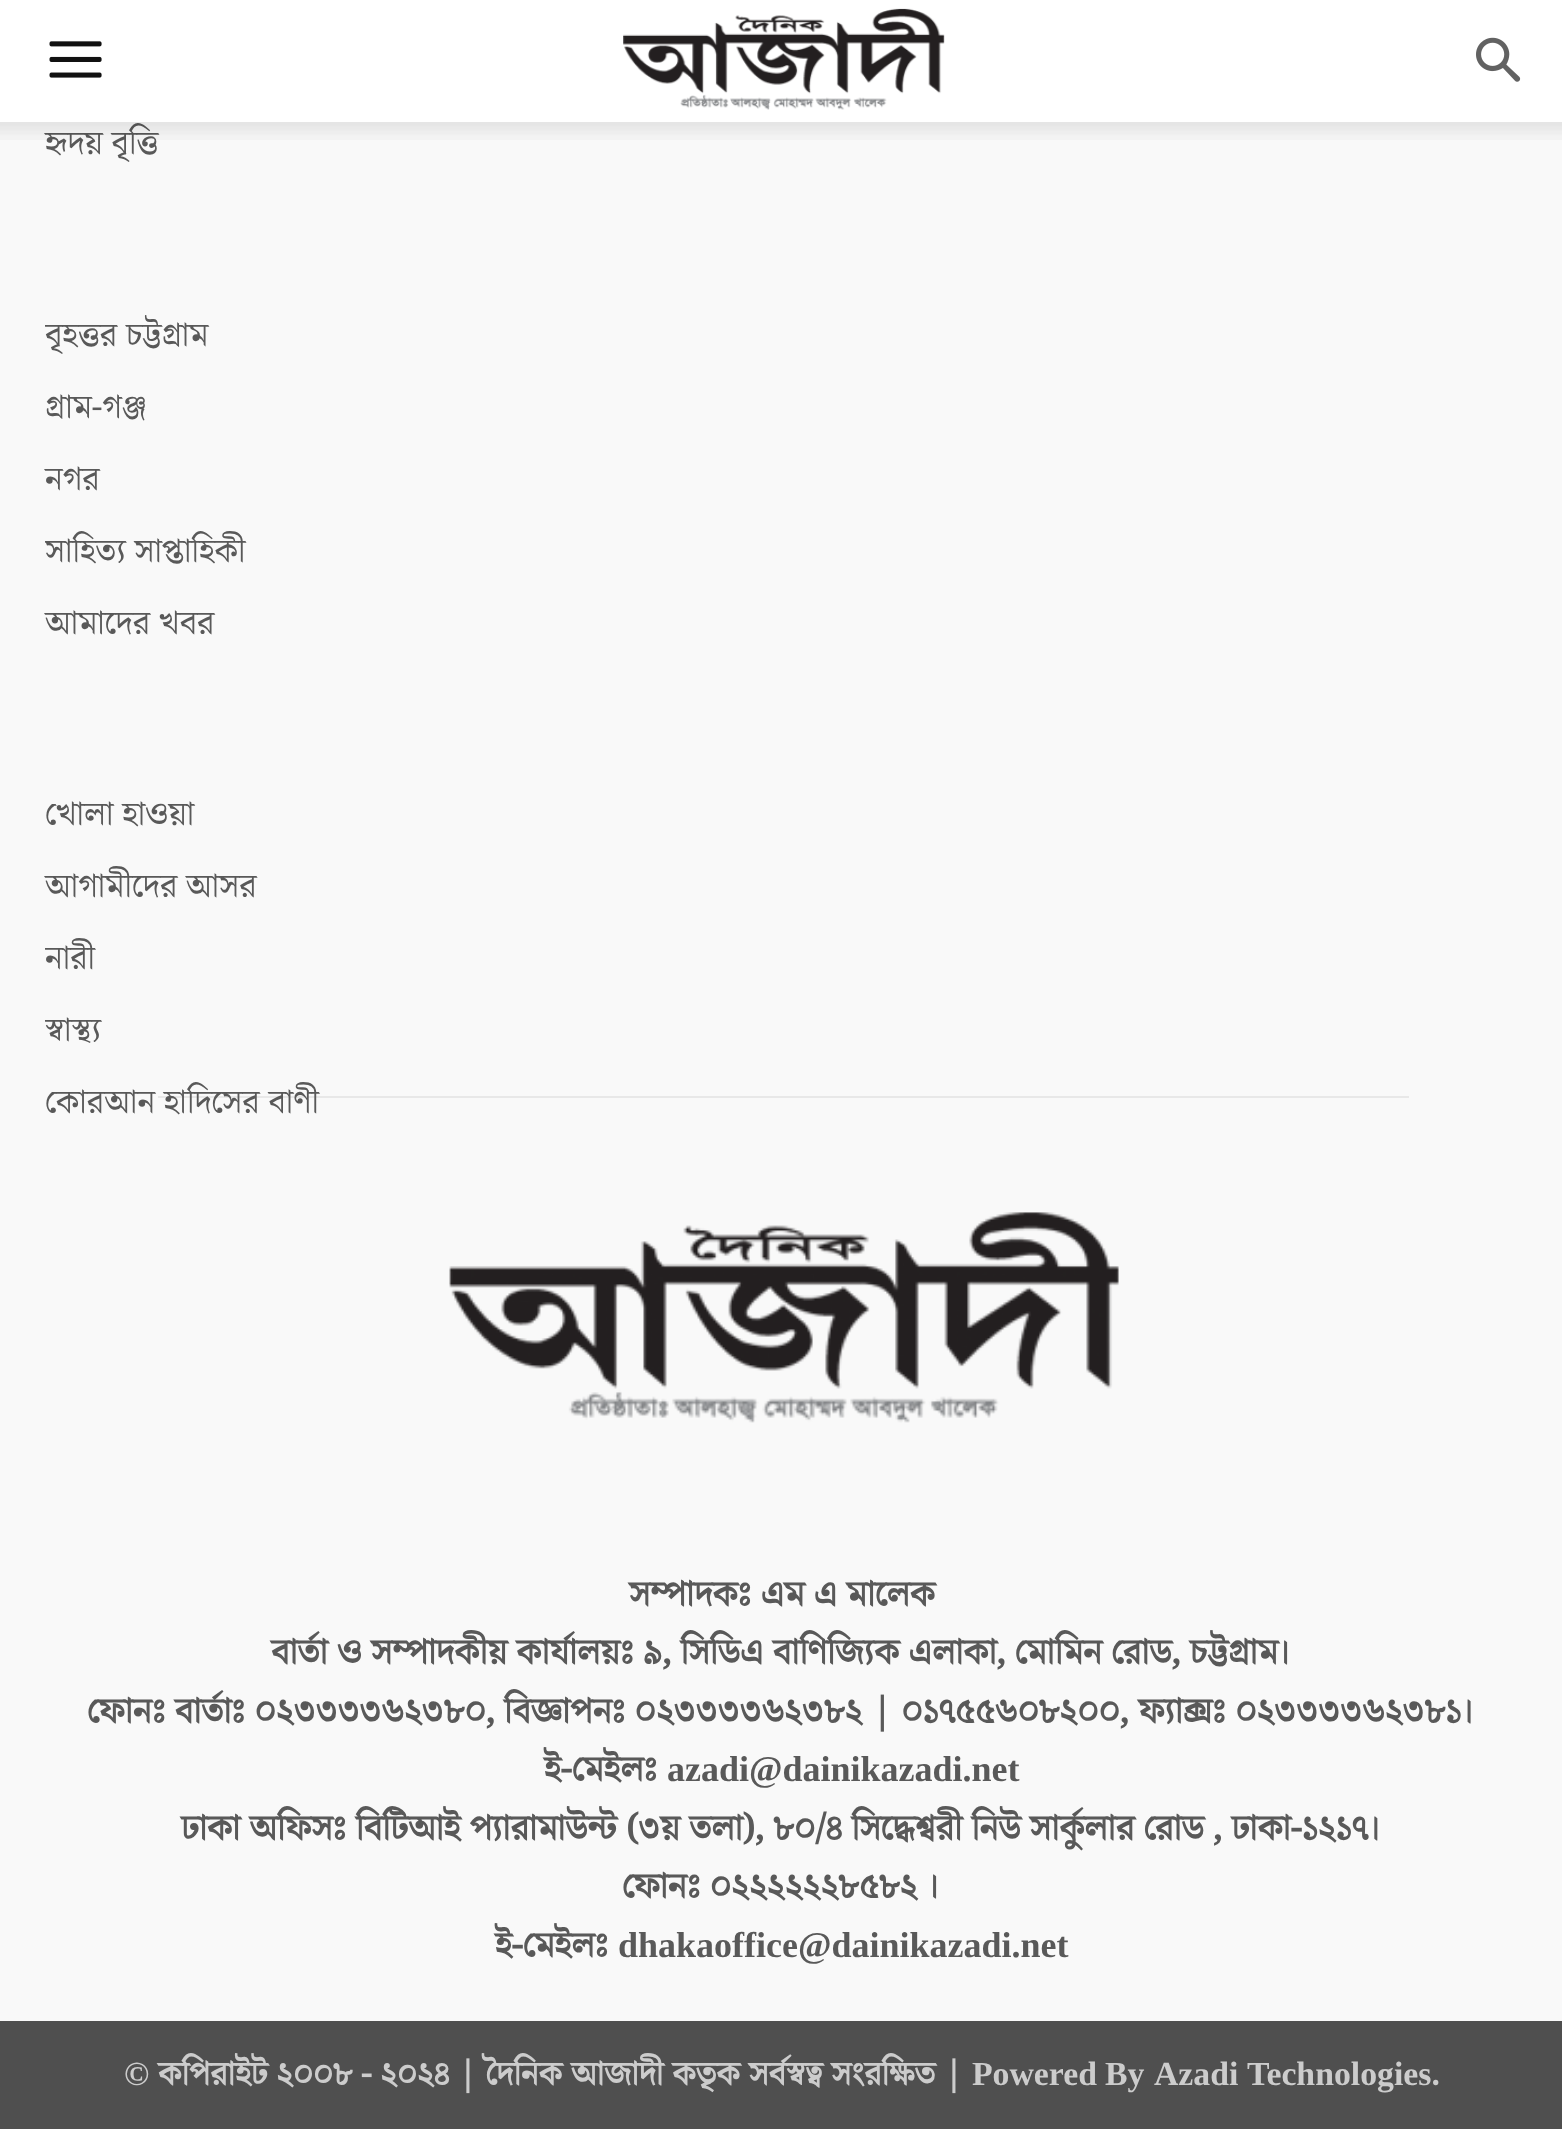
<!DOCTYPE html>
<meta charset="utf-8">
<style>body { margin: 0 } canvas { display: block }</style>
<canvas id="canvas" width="1562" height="2129"></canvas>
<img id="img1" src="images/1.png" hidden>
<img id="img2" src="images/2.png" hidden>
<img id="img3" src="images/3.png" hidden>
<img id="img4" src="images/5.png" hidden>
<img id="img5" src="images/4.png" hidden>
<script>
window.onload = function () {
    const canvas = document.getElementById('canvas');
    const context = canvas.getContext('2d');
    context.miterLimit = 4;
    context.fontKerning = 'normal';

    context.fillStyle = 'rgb(79, 79, 79)';
    context.fillRect(0, 0, 1562, 2129);
    context.fillStyle = 'rgb(255, 255, 255)';
    context.fillRect(0, 0, 1562, 122);
    context.drawImage(document.getElementById('img1'), 49, 41, 53, 37);
    context.drawImage(document.getElementById('img2'), 623, 8, 322, 102);
    context.drawImage(document.getElementById('img3'), 1476, 37, 45, 45);
    context.fillStyle = 'rgb(249, 249, 249)';
    context.fillRect(0, 122, 1562, 1899);
    context.fillStyle = 'rgba(89, 89, 89, 0.1)';
    context.fillRect(158, 1096, 1251, 2);
    context.drawImage(document.getElementById('img4'), 449, 1212, 670, 211);
    context.font = '33.75px Noto Serif Bengali';
    context.fillStyle = 'rgb(89, 89, 89)';
    context.fillText('হৃদয় বৃত্তি', 45, 154);
    context.drawImage(document.getElementById('img5'), 0, 122, 1562, 18);
    context.save();
    context.beginPath();
    context.rect(45, 266, 1474, 393);
    context.clip();
    context.fillText('বৃহত্তর চট্টগ্রাম', 45, 346);
    context.fillText('গ্রাম-গঞ্জ', 45, 418);
    context.restore();
    context.fillText('নগর', 45, 490);
    context.save();
    context.beginPath();
    context.rect(45, 266, 1474, 393);
    context.clip();
    context.fillText('সাহিত্য সাপ্তাহিকী', 45, 562);
    context.restore();
    context.fillText('আমাদের খবর', 45, 634);
    context.save();
    context.beginPath();
    context.rect(45, 745, 1474, 394);
    context.clip();
    context.fillText('খোলা হাওয়া', 45, 825);
    context.restore();
    context.fillText('আগামীদের আসর', 45, 897);
    context.save();
    context.beginPath();
    context.rect(45, 745, 1474, 394);
    context.clip();
    context.fillText('নারী', 45, 969);
    context.fillText('স্বাস্থ্য', 45, 1041);
    context.fillText('কোরআন হাদিসের বাণী', 45, 1113);
    context.restore();
    context.font = 'bold 36px Noto Serif Bengali';
    context.fillText('সম্পাদকঃ এম এ মালেক', 629, 1606);
    context.fillText('বার্তা ও সম্পাদকীয় কার্যালয়ঃ ৯, সিডিএ বাণিজ্যিক এলাকা, মোমিন রোড, চট্টগ্রাম।', 271, 1664);
    context.fillText('ফোনঃ বার্তাঃ ০২৩৩৩৩৬২৩৮০, বিজ্ঞাপনঃ ০২৩৩৩৩৬২৩৮২ | ০১৭৫৫৬০৮২০০, ফ্যাক্সঃ ০২৩৩৩৩৬২৩৮১।', 87, 1723);
    context.fillText('ই-মেইলঃ', 544, 1781);
    context.font = 'bold 36px Liberation Serif';
    context.fillText('azadi@dainikazadi.net', 667, 1781);
    context.font = 'bold 36px Noto Serif Bengali';
    context.fillText('ঢাকা অফিসঃ বিটিআই প্যারামাউন্ট (৩য় তলা), ৮০/৪ সিদ্ধেশ্বরী নিউ সার্কুলার রোড , ঢাকা-১২১৭।', 181, 1840);
    context.fillText('ফোনঃ ০২২২২২২৮৫৮২ ।', 622, 1898);
    context.fillText('ই-মেইলঃ', 495, 1957);
    context.font = 'bold 36px Liberation Serif';
    context.fillText('dhakaoffice@dainikazadi.net', 618, 1957);
    context.font = 'bold 33.75px Liberation Serif';
    context.fillStyle = 'rgb(204, 204, 204)';
    context.fillText('©', 124, 2085);
    context.font = 'bold 33.75px Noto Serif Bengali';
    context.fillText('কপিরাইট ২০০৮ - ২০২৪ | দৈনিক আজাদী কতৃক সর্বস্বত্ব সংরক্ষিত |', 158, 2085);
    context.font = 'bold 33.75px Liberation Serif';
    context.fillText('Powered', 972, 2085);
    context.fillText('By', 1105, 2085);
    context.fillText('Azadi', 1154, 2085);
    context.fillText('Technologies', 1247, 2085);
    context.font = 'bold 33.75px Noto Serif Bengali';
    context.fillText('.', 1431, 2085);
};
</script>
